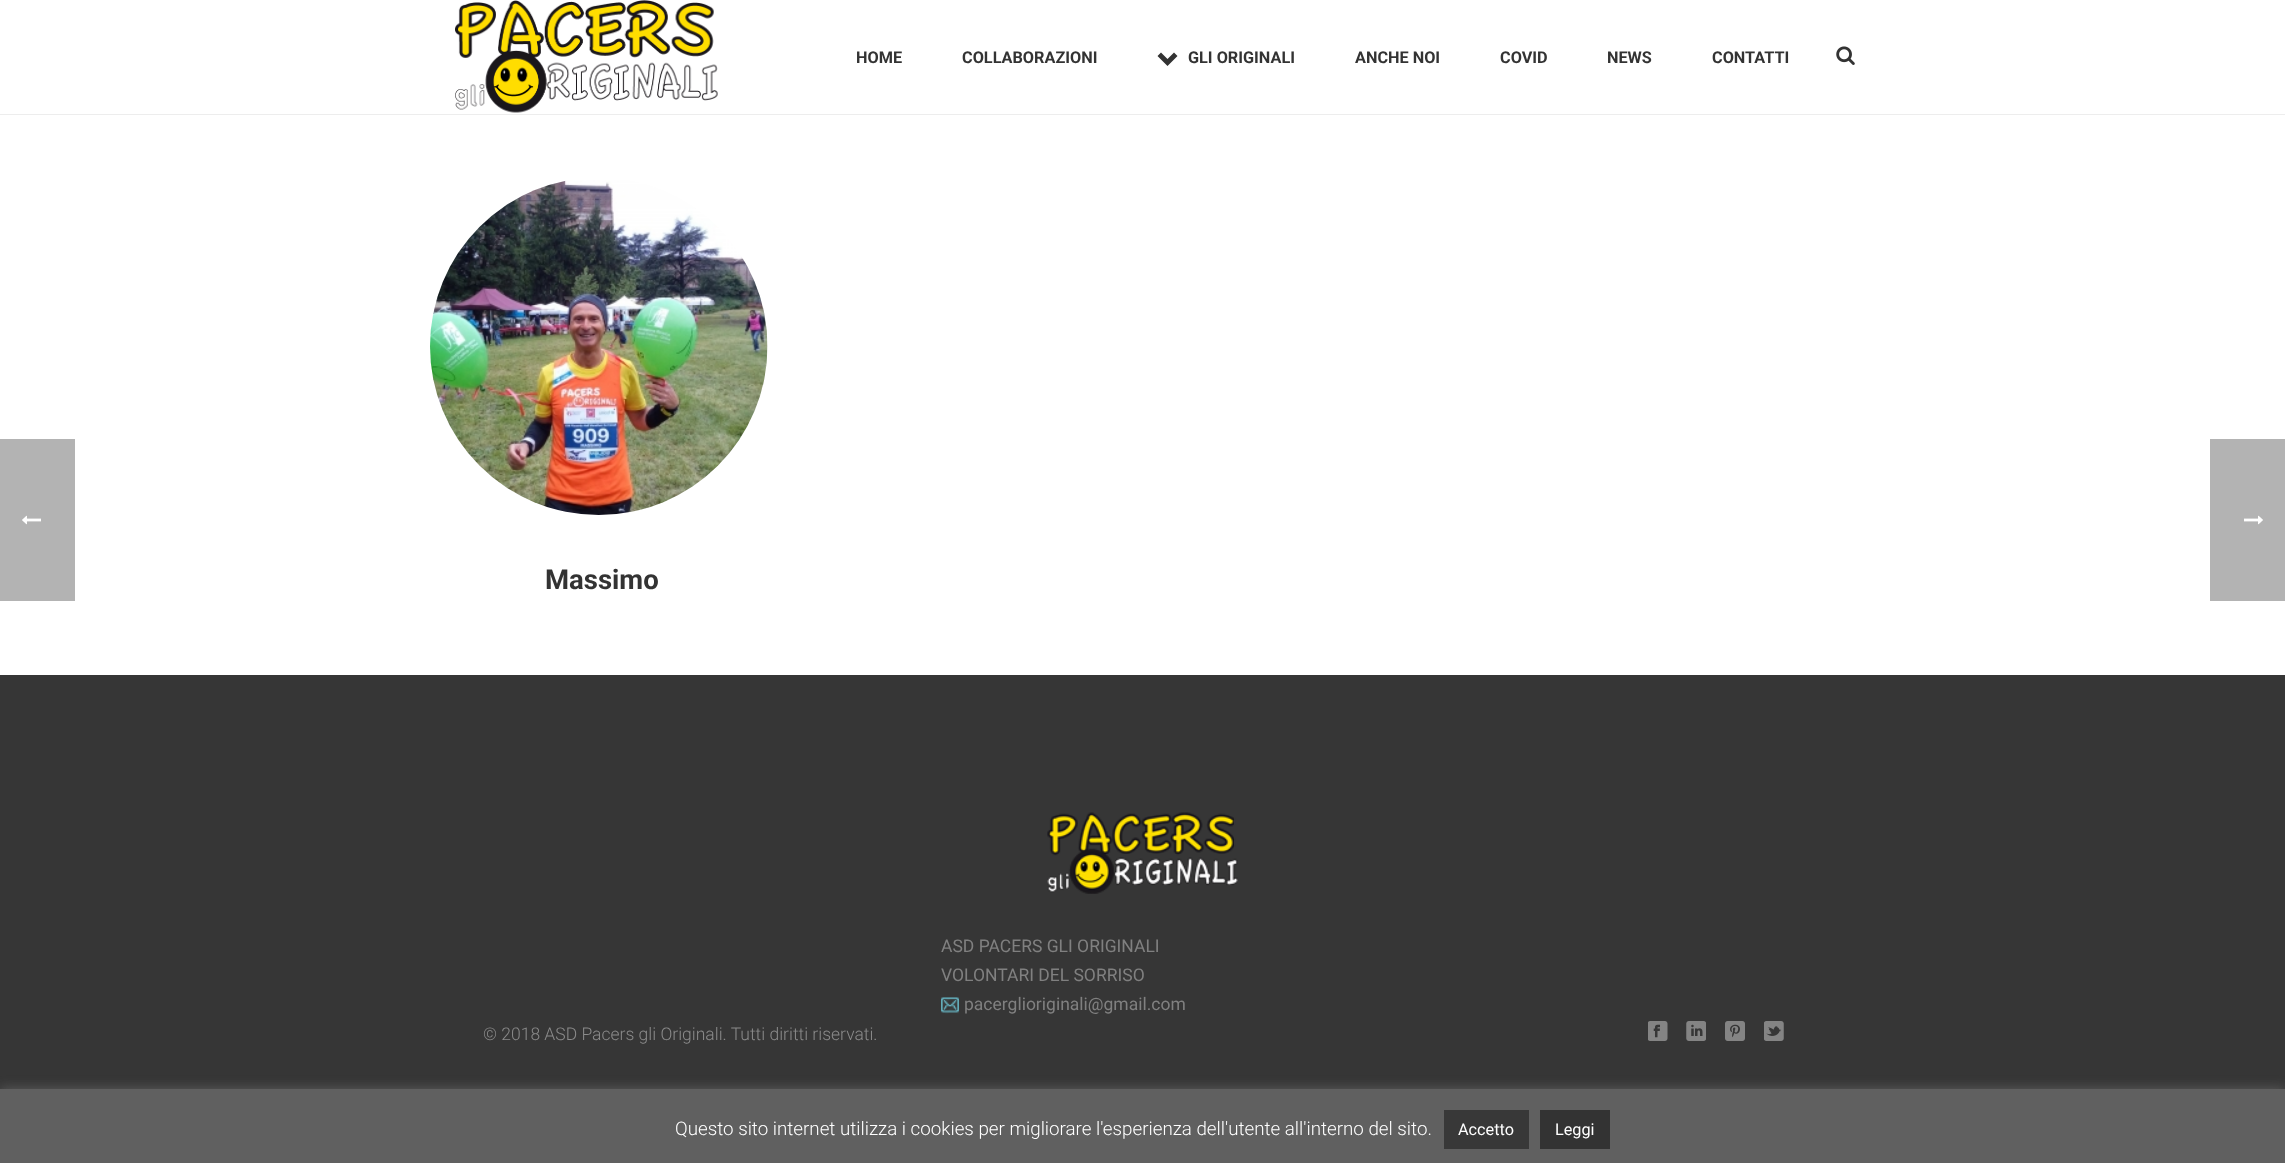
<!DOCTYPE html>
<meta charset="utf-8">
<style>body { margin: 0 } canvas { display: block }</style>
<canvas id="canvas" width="2285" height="1163"></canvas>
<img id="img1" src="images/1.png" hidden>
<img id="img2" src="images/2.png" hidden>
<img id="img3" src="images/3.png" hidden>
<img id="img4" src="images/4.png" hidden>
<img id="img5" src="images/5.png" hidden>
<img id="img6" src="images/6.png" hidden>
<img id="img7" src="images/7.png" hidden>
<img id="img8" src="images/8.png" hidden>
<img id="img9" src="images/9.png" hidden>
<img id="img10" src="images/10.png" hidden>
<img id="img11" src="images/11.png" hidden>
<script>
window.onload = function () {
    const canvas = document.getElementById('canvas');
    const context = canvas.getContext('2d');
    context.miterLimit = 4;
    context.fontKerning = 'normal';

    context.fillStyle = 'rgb(255, 255, 255)';
    context.fillRect(0, 0, 2285, 1163);
    context.fillStyle = 'rgb(179, 179, 179)';
    context.fillRect(0, 439, 75, 162);
    context.drawImage(document.getElementById('img1'), 22, 515, 19, 10);
    context.fillStyle = 'rgb(237, 237, 237)';
    context.fillRect(0, 114, 2285, 1);
    context.drawImage(document.getElementById('img2'), 455, 0, 263, 113);
    context.fillStyle = 'rgb(51, 51, 51)';
    context.beginPath();
    context.moveTo(1177.5, 56);
    context.lineTo(1174, 52.5);
    context.lineTo(1167.5, 59);
    context.lineTo(1161, 52.5);
    context.lineTo(1157.5, 56);
    context.lineTo(1167.5, 66);
    context.closePath();
    context.fill();
    context.drawImage(document.getElementById('img3'), 1836, 46, 19, 19);
    context.drawImage(document.getElementById('img4'), 430, 180, 338, 335);
    context.fillStyle = 'rgb(54, 54, 54)';
    context.fillRect(0, 675, 2285, 414);
    context.drawImage(document.getElementById('img5'), 1047, 812, 191, 82);
    context.drawImage(document.getElementById('img6'), 941, 997, 18, 17);
    context.drawImage(document.getElementById('img7'), 1648, 1021, 20, 20);
    context.drawImage(document.getElementById('img8'), 1686, 1021, 20, 20);
    context.drawImage(document.getElementById('img9'), 1725, 1021, 20, 20);
    context.drawImage(document.getElementById('img10'), 1764, 1021, 20, 20);
    context.fillStyle = 'rgb(179, 179, 179)';
    context.fillRect(2210, 439, 75, 162);
    context.drawImage(document.getElementById('img11'), 2244, 515, 19, 10);
    context.fillStyle = 'rgba(172, 171, 171, 0.3)';
    context.filter = 'blur(6px)';
    context.beginPath();
    context.rect(0, 1088, 2285, 75);
    context.fill();
    context.filter = 'none';
    context.fillStyle = 'rgb(96, 96, 96)';
    context.fillRect(0, 1089, 2285, 74);
    context.fillStyle = 'rgb(56, 56, 56)';
    context.fillRect(1444, 1110, 85, 39);
    context.fillStyle = 'rgb(51, 51, 51)';
    context.fillRect(1540, 1110, 70, 39);
    context.font = 'bold 16.25px Roboto';
    context.fillText('HOME', 856, 63);
    context.fillText('COLLABORAZIONI', 962, 63);
    context.fillText('GLI ORIGINALI', 1188, 63);
    context.fillText('ANCHE NOI', 1355, 63);
    context.fillText('COVID', 1500, 63);
    context.fillText('NEWS', 1607, 63);
    context.fillText('CONTATTI', 1712, 63);
    context.font = 'bold 27.5px Roboto';
    context.fillText('Massimo', 545, 589);
    context.font = '17.5px Roboto';
    context.fillStyle = 'rgb(128, 128, 128)';
    context.fillText('ASD PACERS GLI ORIGINALI', 941, 952);
    context.fillText('VOLONTARI DEL SORRISO', 941, 981);
    context.fillText('pacerglioriginali@gmail.com', 964, 1010);
    context.font = '300 17.5px Roboto';
    context.fillStyle = 'rgb(138, 138, 138)';
    context.fillText('© 2018 ASD Pacers gli Originali. Tutti diritti riservati.', 483, 1040);
    context.font = '300 18.75px Roboto';
    context.fillStyle = 'rgb(255, 255, 255)';
    context.fillText('Questo sito internet utilizza i cookies per migliorare l\'esperienza dell\'utente all\'interno del sito.', 675, 1135);
    context.font = '16.25px Roboto';
    context.fillText('Accetto', 1458, 1135);
    context.fillText('Leggi', 1555, 1135);
};
</script>
